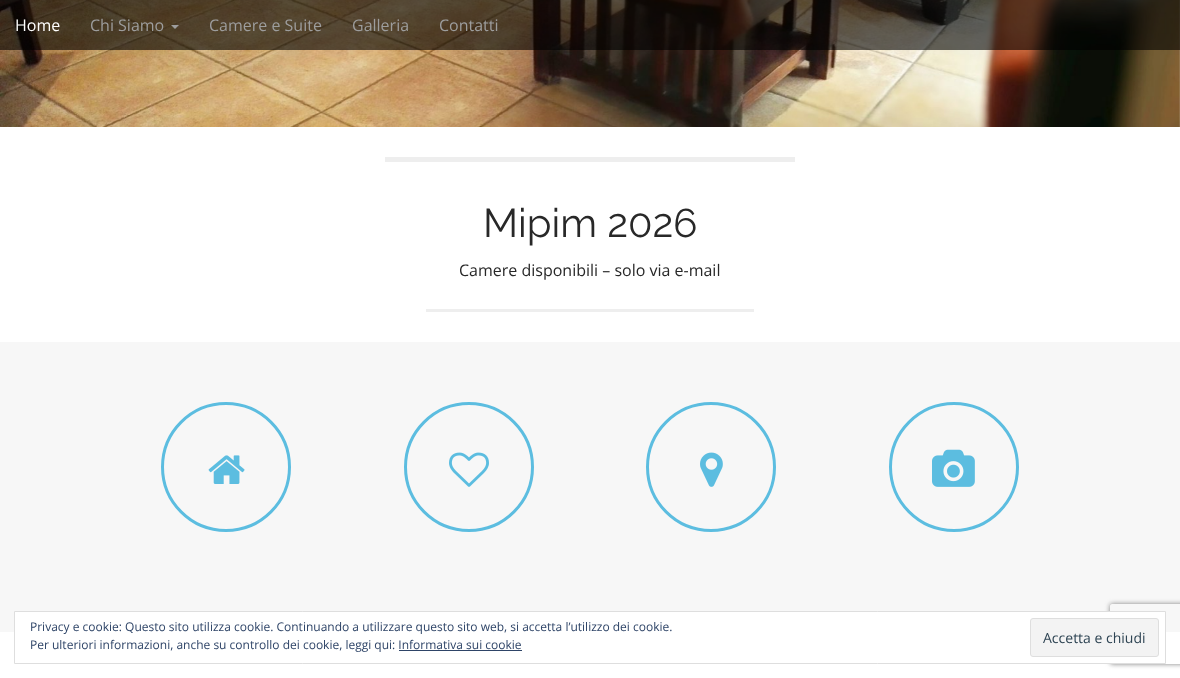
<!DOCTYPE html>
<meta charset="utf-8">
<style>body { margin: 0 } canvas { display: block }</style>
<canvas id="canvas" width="1180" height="678"></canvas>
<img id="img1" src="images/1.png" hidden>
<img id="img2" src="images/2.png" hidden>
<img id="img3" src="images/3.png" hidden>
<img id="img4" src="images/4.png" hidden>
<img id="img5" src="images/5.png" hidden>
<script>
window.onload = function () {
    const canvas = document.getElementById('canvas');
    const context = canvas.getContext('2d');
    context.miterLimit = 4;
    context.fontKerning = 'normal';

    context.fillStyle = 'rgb(255, 255, 255)';
    context.fillRect(0, 0, 1180, 678);
    context.drawImage(document.getElementById('img1'), 0, 0, 1180, 127);
    context.fillStyle = 'rgba(0, 0, 0, 0.6)';
    context.fillRect(0, 0, 1180, 50);
    context.fillStyle = 'rgb(157, 157, 157)';
    context.beginPath();
    context.moveTo(171, 25);
    context.lineTo(179, 25);
    context.lineTo(175, 29);
    context.closePath();
    context.fill();
    context.fillStyle = 'rgb(238, 238, 238)';
    context.fillRect(385, 157, 410, 5);
    context.fillRect(426, 309, 328, 3);
    context.fillStyle = 'rgb(247, 247, 247)';
    context.fillRect(0, 342, 1180, 290);
    context.beginPath();
    context.arc(226, 467, 63.5, 0, 2 * Math.PI);
    context.strokeStyle = 'rgb(92, 189, 224)';
    context.lineWidth = 3;
    context.stroke();
    context.drawImage(document.getElementById('img2'), 208, 455, 37, 29);
    context.beginPath();
    context.arc(469, 467, 63.5, 0, 2 * Math.PI);
    context.stroke();
    context.drawImage(document.getElementById('img3'), 449, 452, 40, 35);
    context.beginPath();
    context.arc(711, 467, 63.5, 0, 2 * Math.PI);
    context.stroke();
    context.drawImage(document.getElementById('img4'), 700, 452, 23, 35);
    context.beginPath();
    context.arc(954, 467, 63.5, 0, 2 * Math.PI);
    context.stroke();
    context.drawImage(document.getElementById('img5'), 932, 449, 43, 38);
    context.save();
    context.beginPath();
    context.moveTo(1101, 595);
    context.lineTo(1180, 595);
    context.lineTo(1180, 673);
    context.lineTo(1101, 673);
    context.closePath();
    context.moveTo(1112, 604);
    context.lineTo(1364, 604);
    context.bezierCurveTo(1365, 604, 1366, 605, 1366, 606);
    context.lineTo(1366, 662);
    context.bezierCurveTo(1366, 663, 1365, 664, 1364, 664);
    context.lineTo(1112, 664);
    context.bezierCurveTo(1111, 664, 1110, 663, 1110, 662);
    context.lineTo(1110, 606);
    context.bezierCurveTo(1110, 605, 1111, 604, 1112, 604);
    context.closePath();
    context.clip('evenodd');
    context.fillStyle = 'rgb(128, 128, 128)';
    context.filter = 'blur(2.5px)';
    context.beginPath();
    context.roundRect(1110, 604, 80, 60, 2);
    context.fill();
    context.filter = 'none';
    context.restore();
    context.fillStyle = 'rgb(255, 255, 255)';
    context.beginPath();
    context.rect(14.5, 611.5, 1151, 52);
    context.fill();
    context.strokeStyle = 'rgb(222, 222, 222)';
    context.lineWidth = 1;
    context.stroke();
    context.fillStyle = 'rgb(243, 243, 243)';
    context.beginPath();
    context.roundRect(1030.5, 618.5, 128, 38, 2.5);
    context.fill();
    context.stroke();
    context.fillStyle = 'rgb(46, 68, 103)';
    context.fillRect(399, 650, 123, 1);
    context.font = '16px Open Sans';
    context.fillStyle = 'rgb(255, 255, 255)';
    context.fillText('Home', 15, 31);
    context.fillStyle = 'rgb(157, 157, 157)';
    context.fillText('Chi Siamo', 90, 31);
    context.fillText('Camere e Suite', 209, 31);
    context.fillText('Galleria', 352, 31);
    context.fillText('Contatti', 439, 31);
    context.font = '100 40px Raleway';
    context.fillStyle = 'rgb(40, 40, 40)';
    context.fillText('Mipim 2026', 483, 237);
    context.font = '16px Open Sans';
    context.fillText('Camere disponibili – solo via e-mail', 459, 276);
    context.font = '12px Open Sans';
    context.fillStyle = 'rgb(46, 68, 103)';
    context.fillText('Privacy e cookie: Questo sito utilizza cookie. Continuando a utilizzare questo sito web, si accetta l’utilizzo dei cookie.', 30, 631);
    context.fillText('Per ulteriori informazioni, anche su controllo dei cookie, leggi qui: Informativa sui cookie', 30, 649);
    context.font = '14px Open Sans';
    context.fillStyle = 'rgb(46, 68, 83)';
    context.fillText('Accetta e chiudi', 1043, 643);
};
</script>
